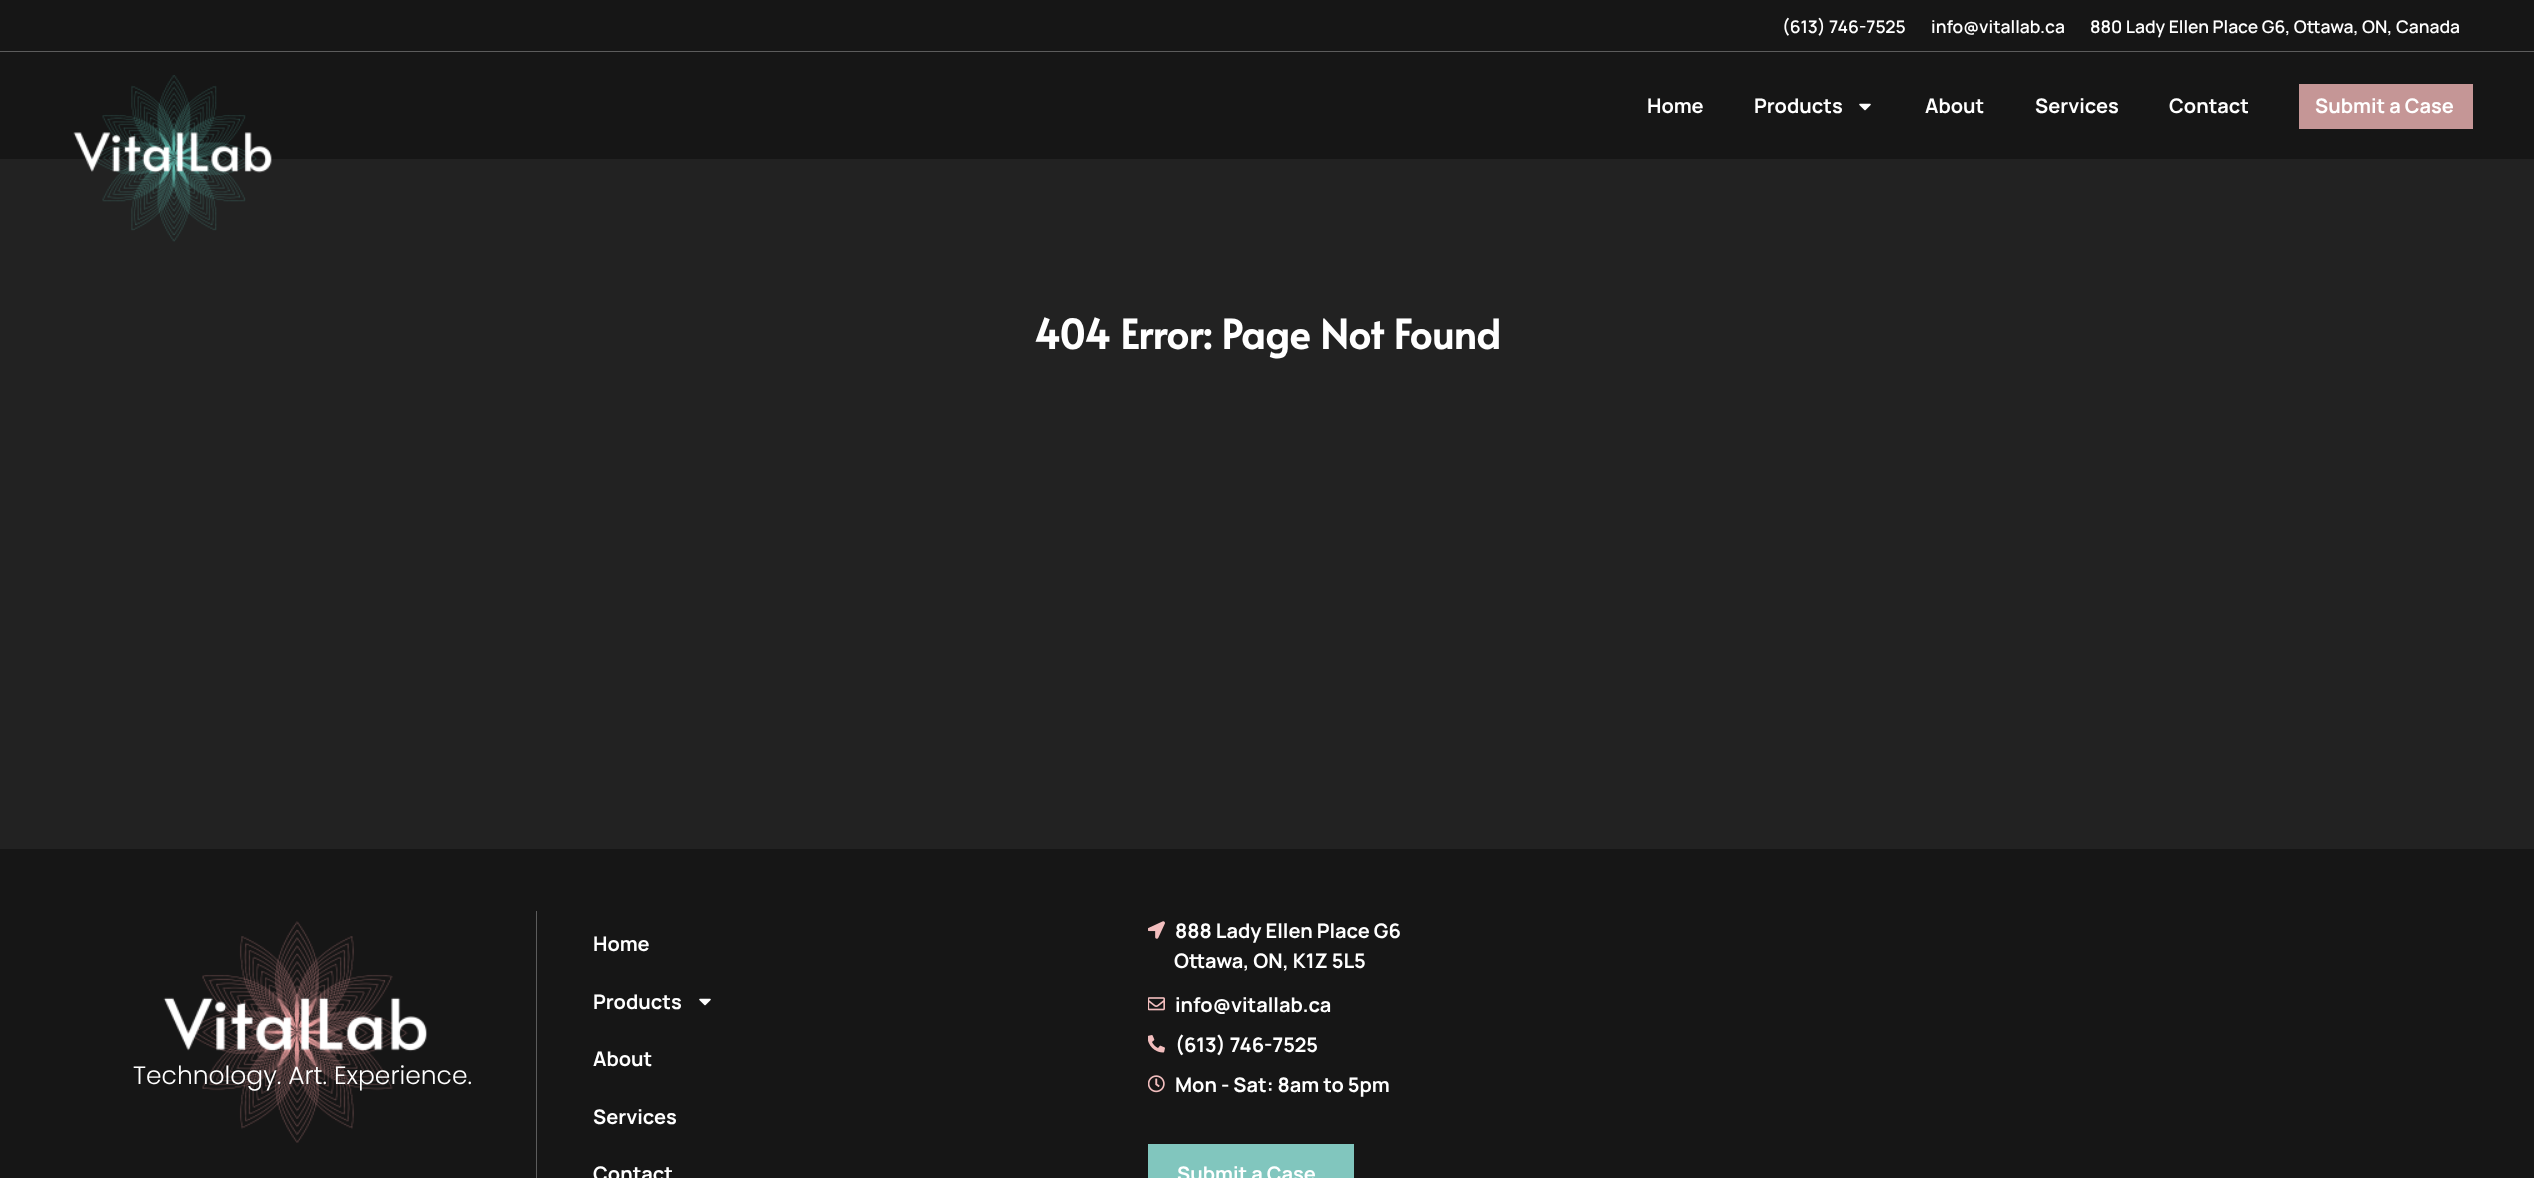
<!DOCTYPE html>
<meta charset="utf-8">
<style>body { margin: 0 } canvas { display: block }</style>
<canvas id="canvas" width="2534" height="1178"></canvas>
<img id="img1" src="images/1.png" hidden>
<img id="img2" src="images/2.png" hidden>
<img id="img3" src="images/3.png" hidden>
<img id="img4" src="images/4.png" hidden>
<img id="img5" src="images/5.png" hidden>
<img id="img6" src="images/6.png" hidden>
<img id="img7" src="images/7.png" hidden>
<script>
window.onload = function () {
    const canvas = document.getElementById('canvas');
    const context = canvas.getContext('2d');
    context.miterLimit = 4;
    context.fontKerning = 'normal';

    context.fillStyle = 'rgb(34, 34, 34)';
    context.fillRect(0, 0, 2534, 1178);
    context.fillStyle = 'rgb(22, 22, 22)';
    context.fillRect(0, 0, 2534, 159);
    context.fillStyle = 'rgb(92, 92, 92)';
    context.fillRect(0, 51, 2534, 1);
    context.drawImage(document.getElementById('img1'), 73, 75, 199, 167);
    context.drawImage(document.getElementById('img2'), 1859, 103, 12, 8);
    context.fillStyle = 'rgb(197, 150, 150)';
    context.fillRect(2299, 84, 174, 45);
    context.fillStyle = 'rgb(22, 22, 22)';
    context.fillRect(0, 849, 2534, 329);
    context.drawImage(document.getElementById('img3'), 163, 921, 265, 222);
    context.fillStyle = 'rgb(92, 92, 92)';
    context.fillRect(536, 911, 1, 267);
    context.drawImage(document.getElementById('img2'), 699, 998, 12, 8);
    context.drawImage(document.getElementById('img4'), 1148, 921, 17, 18);
    context.drawImage(document.getElementById('img5'), 1148, 997, 17, 14);
    context.drawImage(document.getElementById('img6'), 1148, 1035, 17, 18);
    context.drawImage(document.getElementById('img7'), 1148, 1075, 17, 18);
    context.fillStyle = 'rgb(129, 198, 190)';
    context.fillRect(1148, 1144, 206, 34);
    context.font = '600 17.5px Manrope';
    context.fillStyle = 'rgb(255, 255, 255)';
    context.fillText('(613) 746-7525', 1782, 33);
    context.fillText('info@vitallab.ca', 1931, 33);
    context.fillText('880 Lady Ellen Place G6, Ottawa, ON, Canada', 2090, 33);
    context.font = 'bold 20px Manrope';
    context.fillText('Home', 1647, 113);
    context.fillText('Products', 1754, 113);
    context.fillText('About', 1925, 113);
    context.fillText('Services', 2035, 113);
    context.fillText('Contact', 2169, 113);
    context.fillText('Submit a Case', 2315, 113);
    context.font = 'bold 40px Alata';
    context.fillText('404 Error: Page Not Found', 1034, 349);
    context.font = '300 25px Poppins';
    context.fillText('Technology. Art. Experience.', 133, 1084);
    context.font = 'bold 20px Manrope';
    context.fillText('Home', 593, 951);
    context.fillText('Products', 593, 1009);
    context.fillText('About', 593, 1066);
    context.fillText('Services', 593, 1124);
    context.fillText('Contact', 593, 1181);
    context.fillText('888 Lady Ellen Place G6', 1175, 938);
    context.fillText('Ottawa, ON, K1Z 5L5', 1174, 968);
    context.fillText('info@vitallab.ca', 1175, 1012);
    context.fillText('(613) 746-7525', 1175, 1052);
    context.fillText('Mon - Sat: 8am to 5pm', 1175, 1092);
    context.fillText('Submit a Case', 1177, 1181);
};
</script>
